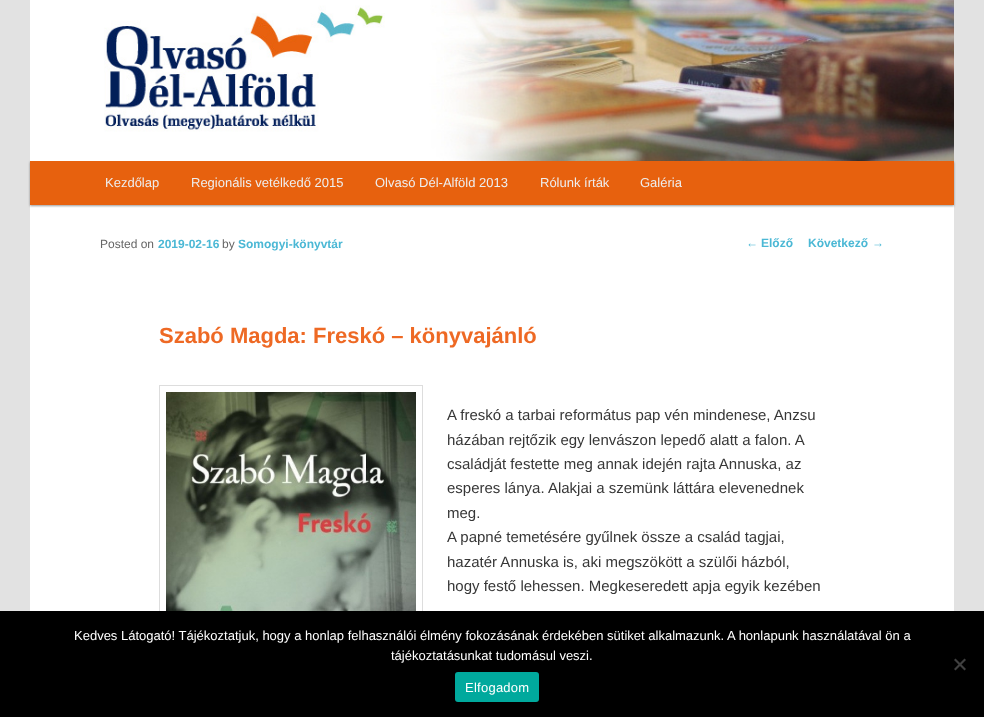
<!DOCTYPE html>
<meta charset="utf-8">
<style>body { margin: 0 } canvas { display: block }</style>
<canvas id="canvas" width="984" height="717"></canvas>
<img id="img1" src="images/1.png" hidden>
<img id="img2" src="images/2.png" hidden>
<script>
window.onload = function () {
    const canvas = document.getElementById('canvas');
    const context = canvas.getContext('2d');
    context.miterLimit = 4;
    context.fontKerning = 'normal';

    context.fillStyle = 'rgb(226, 226, 226)';
    context.fillRect(0, 0, 984, 717);
    context.fillStyle = 'rgb(255, 255, 255)';
    context.fillRect(30, 205, 924, 406);
    context.fillStyle = 'rgba(0, 0, 0, 0.4)';
    context.filter = 'blur(1px)';
    context.beginPath();
    context.rect(30, 162, 924, 44);
    context.fill();
    context.filter = 'none';
    context.drawImage(document.getElementById('img1'), 30, 0, 924, 161);
    context.fillStyle = 'rgb(231, 97, 14)';
    context.fillRect(30, 161, 924, 44);
    context.strokeStyle = 'rgb(221, 221, 221)';
    context.strokeRect(159.5, 385.5, 263, 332);
    context.drawImage(document.getElementById('img2'), 166, 392, 250, 219);
    context.fillStyle = 'rgb(0, 0, 0)';
    context.fillRect(0, 611, 984, 106);
    context.fillStyle = 'rgb(64, 64, 64)';
    context.beginPath();
    context.moveTo(964.5, 658.5);
    context.lineTo(966, 660);
    context.lineTo(955.5, 670.5);
    context.lineTo(954, 669);
    context.closePath();
    context.fill();
    context.beginPath();
    context.moveTo(954, 660);
    context.lineTo(955.5, 658.5);
    context.lineTo(966, 669);
    context.lineTo(964.5, 670.5);
    context.closePath();
    context.fill();
    context.fillStyle = 'rgb(0, 169, 157)';
    context.beginPath();
    context.roundRect(455, 672, 84, 30, 3);
    context.fill();
    context.font = '13px Liberation Sans';
    context.fillStyle = 'rgb(238, 238, 238)';
    context.fillText('Kezdőlap', 105, 187);
    context.fillText('Regionális vetélkedő 2015', 191, 187);
    context.fillText('Olvasó Dél-Alföld 2013', 375, 187);
    context.fillText('Rólunk írták', 540, 187);
    context.fillText('Galéria', 640, 187);
    context.font = '12px Liberation Sans';
    context.fillStyle = 'rgb(75, 184, 213)';
    context.fillText('←', 746, 247);
    context.font = 'bold 12px Liberation Sans';
    context.fillText('Előző', 761, 247);
    context.fillText('Következő', 808, 247);
    context.font = '12px Liberation Sans';
    context.fillText('→', 872, 247);
    context.fillStyle = 'rgb(102, 102, 102)';
    context.fillText('Posted on', 100, 248);
    context.font = 'bold 12px Liberation Sans';
    context.fillStyle = 'rgb(75, 184, 213)';
    context.fillText('2019-02-16', 158, 248);
    context.font = '12px Liberation Sans';
    context.fillStyle = 'rgb(102, 102, 102)';
    context.fillText('by', 222, 248);
    context.font = 'bold 12px Liberation Sans';
    context.fillStyle = 'rgb(75, 184, 213)';
    context.fillText('Somogyi-könyvtár', 238, 248);
    context.font = 'bold 22px Liberation Sans';
    context.fillStyle = 'rgb(238, 105, 36)';
    context.fillText('Szabó Magda: Freskó – könyvajánló', 159, 343);
    context.font = '15px Liberation Sans';
    context.fillStyle = 'rgb(55, 55, 55)';
    context.fillText('A freskó a tarbai református pap vén mindenese, Anzsu', 447, 420);
    context.fillText('házában rejtőzik egy lenvászon lepedő alatt a falon. A', 447, 445);
    context.fillText('családját festette meg annak idején rajta Annuska, az', 447, 469);
    context.fillText('esperes lánya. Alakjai a szemünk láttára elevenednek', 447, 493);
    context.fillText('meg.', 447, 518);
    context.fillText('A papné temetésére gyűlnek össze a család tagjai,', 447, 542);
    context.fillText('hazatér Annuska is, aki megszökött a szülői házból,', 447, 567);
    context.fillText('hogy festő lehessen. Megkeseredett apja egyik kezében', 447, 591);
    context.font = '13px Liberation Sans';
    context.fillStyle = 'rgb(255, 255, 255)';
    context.fillText('Kedves Látogató! Tájékoztatjuk, hogy a honlap felhasználói élmény fokozásának érdekében sütiket alkalmazunk. A honlapunk használatával ön a', 74, 640);
    context.fillText('tájékoztatásunkat tudomásul veszi.', 391, 660);
    context.letterSpacing = '0.25px';
    context.fillText('Elfogadom', 465, 692);
};
</script>
